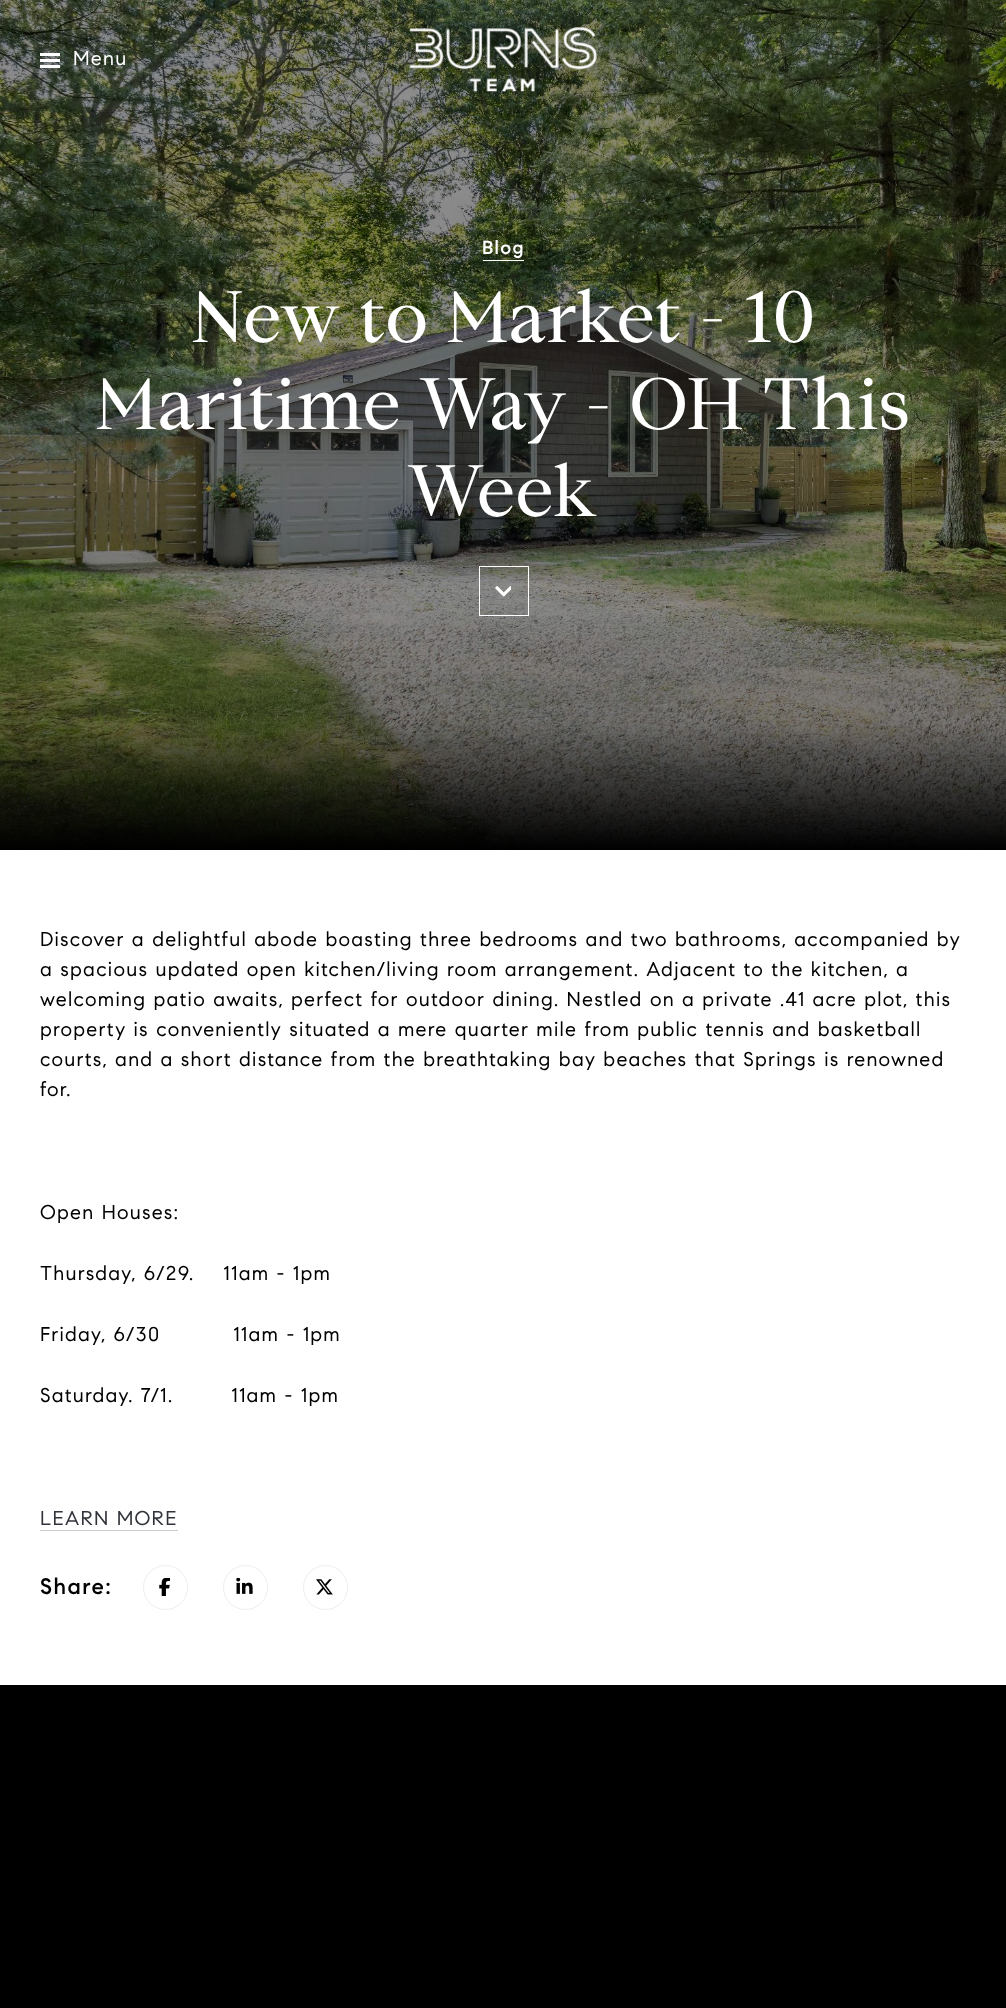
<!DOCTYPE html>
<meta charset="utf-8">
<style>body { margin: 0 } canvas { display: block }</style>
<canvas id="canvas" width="1006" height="2008"></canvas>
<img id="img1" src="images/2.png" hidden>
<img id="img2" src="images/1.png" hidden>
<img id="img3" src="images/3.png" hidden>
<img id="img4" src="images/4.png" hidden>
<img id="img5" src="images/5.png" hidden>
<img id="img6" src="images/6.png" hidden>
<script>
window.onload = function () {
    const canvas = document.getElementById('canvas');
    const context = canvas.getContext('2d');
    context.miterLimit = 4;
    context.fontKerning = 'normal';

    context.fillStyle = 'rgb(255, 255, 255)';
    context.fillRect(0, 0, 1006, 2008);
    context.drawImage(document.getElementById('img1'), 0, 0, 1006, 850);
    context.fillRect(40, 59, 20, 3);
    context.fillRect(40, 53, 20, 3);
    context.fillRect(40, 65, 20, 3);
    context.drawImage(document.getElementById('img2'), 409, 27, 188, 65);
    context.fillRect(483, 260, 41, 1);
    context.strokeStyle = 'rgb(255, 255, 255)';
    context.strokeRect(479.5, 566.5, 49, 49);
    context.drawImage(document.getElementById('img3'), 495, 586, 16, 11);
    context.fillStyle = 'rgb(204, 204, 204)';
    context.fillRect(40, 1530, 138, 1);
    context.beginPath();
    context.arc(165.5, 1587.5, 22, 0, 2 * Math.PI);
    context.strokeStyle = 'rgb(238, 238, 238)';
    context.stroke();
    context.drawImage(document.getElementById('img4'), 159, 1578, 11, 18);
    context.beginPath();
    context.arc(245.5, 1587.5, 22, 0, 2 * Math.PI);
    context.stroke();
    context.drawImage(document.getElementById('img5'), 236, 1578, 17, 16);
    context.beginPath();
    context.arc(325.5, 1587.5, 22, 0, 2 * Math.PI);
    context.stroke();
    context.drawImage(document.getElementById('img6'), 316, 1579, 17, 16);
    context.fillStyle = 'rgb(0, 0, 0)';
    context.fillRect(0, 1685, 1006, 323);
    context.letterSpacing = '1.25px';
    context.font = '20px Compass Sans';
    context.fillStyle = 'rgb(255, 255, 255)';
    context.fillText('Menu', 73, 65);
    context.font = '500 19px Compass Sans';
    context.fillText('Blog', 482, 254);
    context.font = '72.5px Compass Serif';
    context.fillText('New to Market - 10', 191, 342);
    context.fillText('Maritime Way - OH This', 95, 429);
    context.fillText('Week', 407, 516);
    context.font = '20px Compass Sans';
    context.fillStyle = 'rgb(0, 0, 0)';
    context.fillText('Discover a delightful abode boasting three bedrooms and two bathrooms, accompanied by', 40, 946);
    context.fillText('a spacious updated open kitchen/living room arrangement. Adjacent to the kitchen, a', 40, 976);
    context.fillText('welcoming patio awaits, perfect for outdoor dining. Nestled on a private .41 acre plot, this', 40, 1006);
    context.fillText('property is conveniently situated a mere quarter mile from public tennis and basketball', 40, 1036);
    context.fillText('courts, and a short distance from the breathtaking bay beaches that Springs is renowned', 40, 1066);
    context.fillText('for.', 40, 1096);
    context.fillText('Open Houses:', 40, 1219);
    context.fillText('Thursday, 6/29.    11am - 1pm', 40, 1280);
    context.fillText('Friday, 6/30          11am - 1pm', 40, 1341);
    context.fillText('Saturday. 7/1.        11am - 1pm', 40, 1402);
    context.fillStyle = 'rgb(48, 51, 57)';
    context.fillText('LEARN MORE', 40, 1525);
    context.letterSpacing = '1.5px';
    context.font = '500 22.5px Compass Sans';
    context.fillStyle = 'rgb(0, 0, 0)';
    context.fillText('Share:', 40, 1594);
};
</script>
